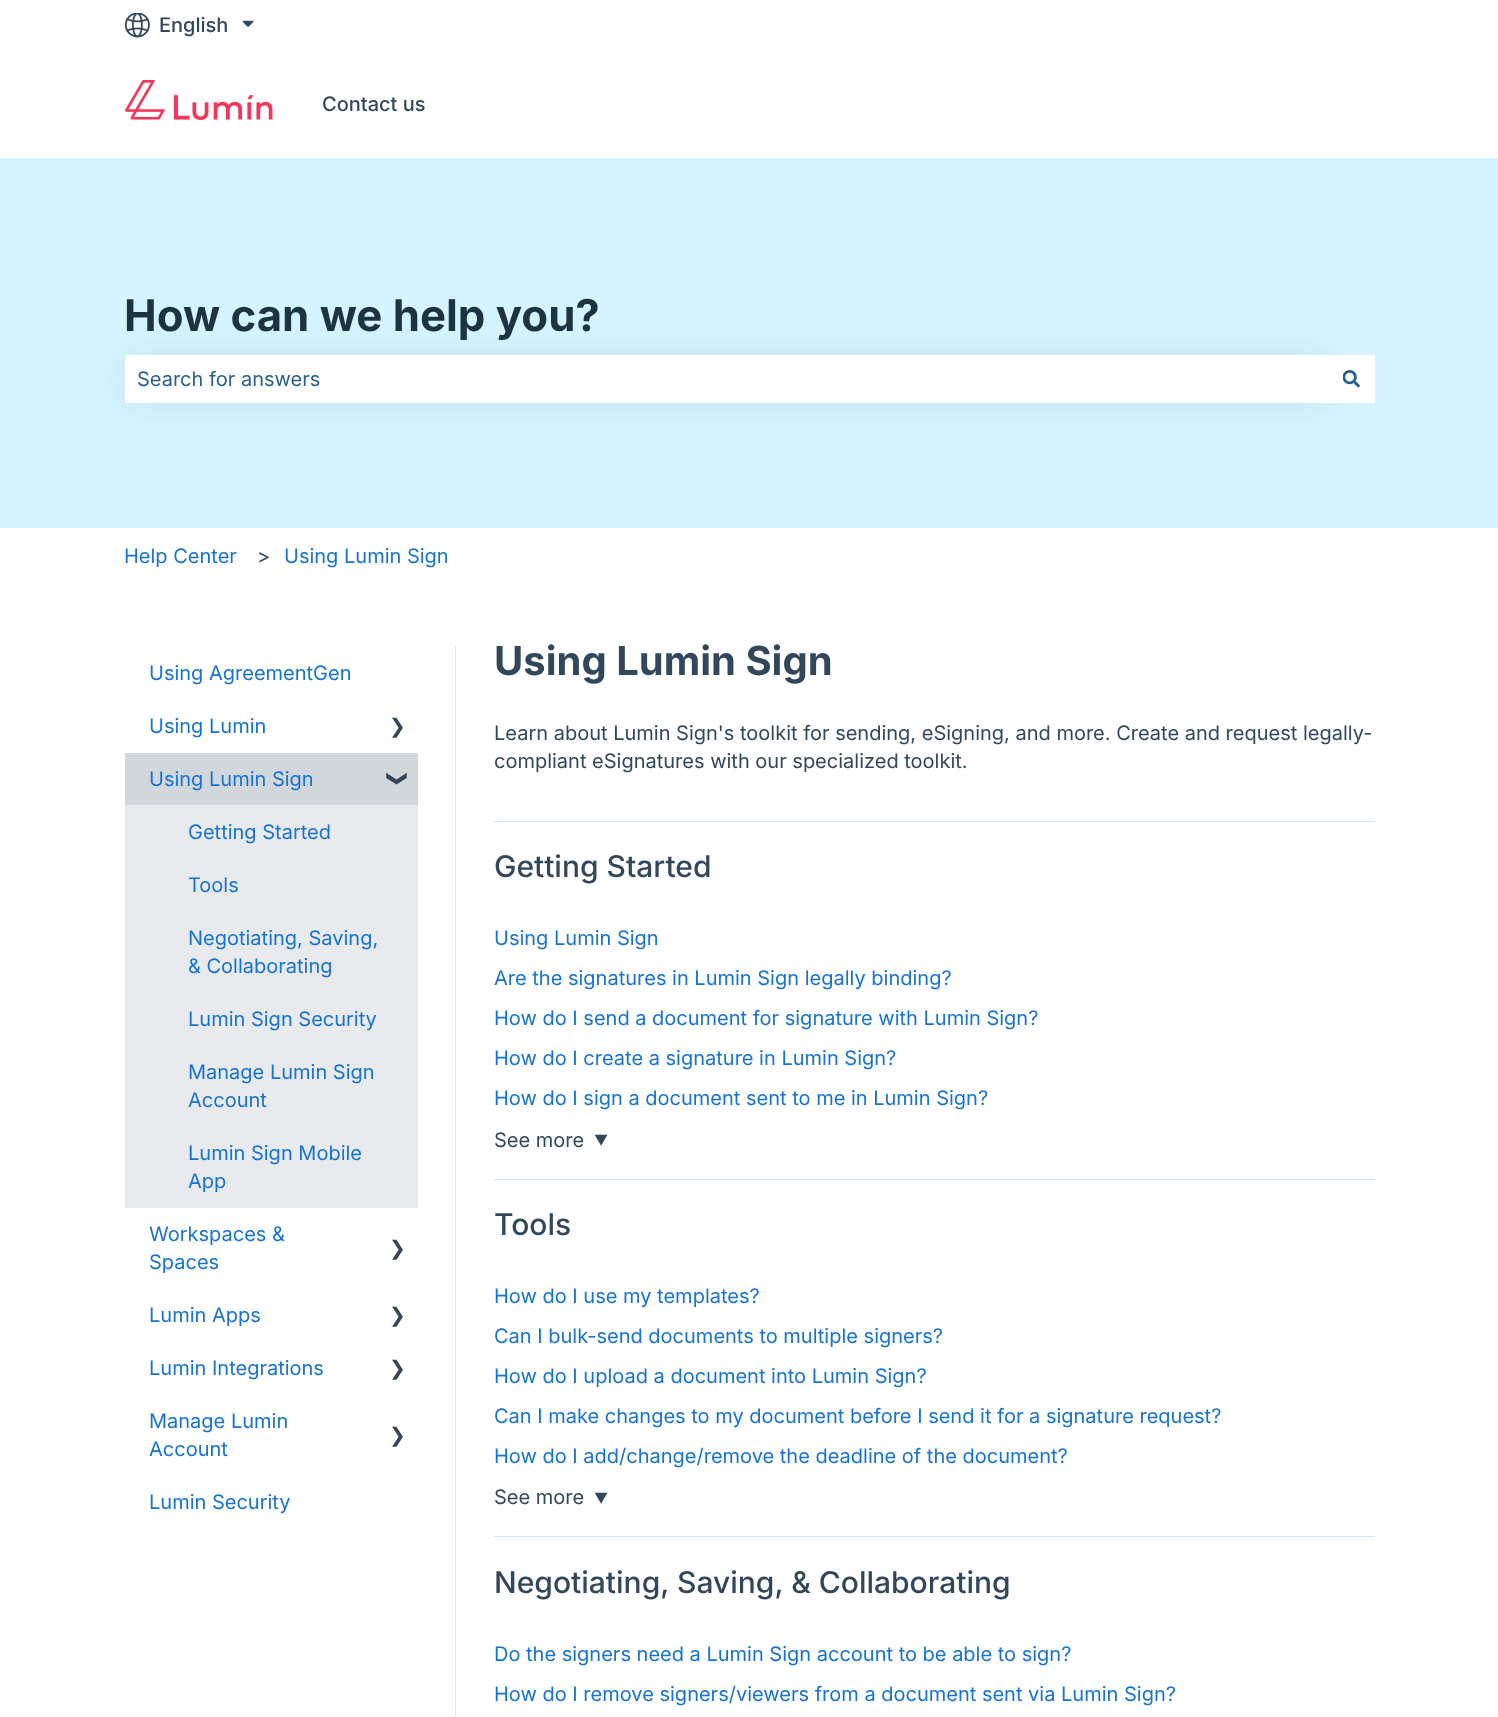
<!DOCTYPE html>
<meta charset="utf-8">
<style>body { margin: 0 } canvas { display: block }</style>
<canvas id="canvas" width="1498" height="1717"></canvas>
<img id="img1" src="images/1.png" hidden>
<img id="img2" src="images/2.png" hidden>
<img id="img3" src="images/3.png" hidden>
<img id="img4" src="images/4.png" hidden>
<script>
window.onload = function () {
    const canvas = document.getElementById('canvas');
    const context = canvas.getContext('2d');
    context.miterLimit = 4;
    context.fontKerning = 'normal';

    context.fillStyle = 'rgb(255, 255, 255)';
    context.fillRect(0, 0, 1498, 1717);
    context.drawImage(document.getElementById('img1'), 125, 13, 25, 25);
    context.drawImage(document.getElementById('img2'), 242, 20, 12, 7);
    context.drawImage(document.getElementById('img3'), 125, 80, 148, 40);
    context.fillStyle = 'rgb(212, 245, 255)';
    context.fillRect(0, 158, 1498, 370);
    context.fillStyle = 'rgba(0, 0, 0, 0.08)';
    context.filter = 'blur(15px)';
    context.beginPath();
    context.rect(125, 356, 1203, 48);
    context.fill();
    context.filter = 'none';
    context.fillStyle = 'rgb(255, 255, 255)';
    context.fillRect(125, 355, 1250, 48);
    context.drawImage(document.getElementById('img4'), 1343, 370, 17, 18);
    context.fillStyle = 'rgb(226, 235, 244)';
    context.fillRect(455, 646, 1, 1071);
    context.fillStyle = 'rgb(232, 234, 237)';
    context.fillRect(125, 805, 293, 403);
    context.fillStyle = 'rgb(210, 215, 220)';
    context.fillRect(125, 753, 293, 52);
    context.fillStyle = 'rgb(217, 229, 240)';
    context.fillRect(494, 821, 881, 1);
    context.fillRect(494, 1179, 881, 1);
    context.fillRect(494, 1536, 881, 1);
    context.font = '500 20px Inter';
    context.fillStyle = 'rgb(51, 71, 91)';
    context.fillText('English', 159, 32);
    context.fillText('Contact us', 322, 111);
    context.font = 'bold 43.75px Inter';
    context.fillStyle = 'rgb(30, 51, 66)';
    context.fillText('How can we help you?', 124, 331);
    context.font = '20px Inter';
    context.fillStyle = 'rgb(42, 95, 141)';
    context.fillText('Search for answers', 137, 386);
    context.fillStyle = 'rgb(23, 115, 209)';
    context.fillText('Help Center', 124, 563);
    context.fillStyle = 'rgb(51, 71, 91)';
    context.fillText('>', 257, 563);
    context.fillStyle = 'rgb(23, 115, 209)';
    context.fillText('Using Lumin Sign', 284, 563);
    context.fillText('Using AgreementGen', 149, 680);
    context.fillText('Using Lumin', 149, 733);
    context.font = '20px DejaVu Sans';
    context.fillStyle = 'rgb(51, 71, 91)';
    context.fillText('❯', 389, 733);
    context.font = '20px Inter';
    context.fillStyle = 'rgb(23, 115, 209)';
    context.fillText('Using Lumin Sign', 149, 786);
    context.font = 'bold 20px DejaVu Sans';
    context.fillStyle = 'rgb(51, 71, 91)';
    context.save();
    context.translate(391, 770);
    context.rotate(90 * Math.PI / 180);
    context.fillText('❯', 0, 0);
    context.restore();
    context.font = '20px Inter';
    context.fillStyle = 'rgb(23, 115, 209)';
    context.fillText('Getting Started', 188, 839);
    context.fillText('Tools', 188, 892);
    context.fillText('Negotiating, Saving,', 188, 945);
    context.fillText('& Collaborating', 188, 973);
    context.fillText('Lumin Sign Security', 188, 1026);
    context.fillText('Manage Lumin Sign', 188, 1079);
    context.fillText('Account', 188, 1107);
    context.fillText('Lumin Sign Mobile', 188, 1160);
    context.fillText('App', 188, 1188);
    context.fillText('Workspaces &', 149, 1241);
    context.fillText('Spaces', 149, 1269);
    context.font = '20px DejaVu Sans';
    context.fillStyle = 'rgb(51, 71, 91)';
    context.fillText('❯', 389, 1255);
    context.font = '20px Inter';
    context.fillStyle = 'rgb(23, 115, 209)';
    context.fillText('Lumin Apps', 149, 1322);
    context.font = '20px DejaVu Sans';
    context.fillStyle = 'rgb(51, 71, 91)';
    context.fillText('❯', 389, 1322);
    context.font = '20px Inter';
    context.fillStyle = 'rgb(23, 115, 209)';
    context.fillText('Lumin Integrations', 149, 1375);
    context.font = '20px DejaVu Sans';
    context.fillStyle = 'rgb(51, 71, 91)';
    context.fillText('❯', 389, 1375);
    context.font = '20px Inter';
    context.fillStyle = 'rgb(23, 115, 209)';
    context.fillText('Manage Lumin', 149, 1428);
    context.fillText('Account', 149, 1456);
    context.font = '20px DejaVu Sans';
    context.fillStyle = 'rgb(51, 71, 91)';
    context.fillText('❯', 389, 1442);
    context.font = '20px Inter';
    context.fillStyle = 'rgb(23, 115, 209)';
    context.fillText('Lumin Security', 149, 1509);
    context.font = 'bold 40px Inter';
    context.fillStyle = 'rgb(51, 71, 91)';
    context.fillText('Using Lumin Sign', 494, 675);
    context.font = '20px Inter';
    context.fillText('Learn about Lumin Sign\'s toolkit for sending, eSigning, and more. Create and request legally-', 494, 740);
    context.fillText('compliant eSignatures with our specialized toolkit.', 494, 768);
    context.font = '500 30px Inter';
    context.fillText('Getting Started', 494, 877);
    context.font = '20px Inter';
    context.fillStyle = 'rgb(23, 115, 209)';
    context.fillText('Using Lumin Sign', 494, 945);
    context.fillText('Are the signatures in Lumin Sign legally binding?', 494, 985);
    context.fillText('How do I send a document for signature with Lumin Sign?', 494, 1025);
    context.fillText('How do I create a signature in Lumin Sign?', 494, 1065);
    context.fillText('How do I sign a document sent to me in Lumin Sign?', 494, 1105);
    context.fillStyle = 'rgb(51, 71, 91)';
    context.fillText('See more', 494, 1147);
    context.font = '14px Inter';
    context.fillText('▼', 594, 1145);
    context.font = '500 30px Inter';
    context.fillText('Tools', 494, 1235);
    context.font = '20px Inter';
    context.fillStyle = 'rgb(23, 115, 209)';
    context.fillText('How do I use my templates?', 494, 1303);
    context.fillText('Can I bulk-send documents to multiple signers?', 494, 1343);
    context.fillText('How do I upload a document into Lumin Sign?', 494, 1383);
    context.fillText('Can I make changes to my document before I send it for a signature request?', 494, 1423);
    context.fillText('How do I add/change/remove the deadline of the document?', 494, 1463);
    context.fillStyle = 'rgb(51, 71, 91)';
    context.fillText('See more', 494, 1504);
    context.font = '14px Inter';
    context.fillText('▼', 594, 1503);
    context.font = '500 30px Inter';
    context.fillText('Negotiating, Saving, & Collaborating', 494, 1593);
    context.font = '20px Inter';
    context.fillStyle = 'rgb(23, 115, 209)';
    context.fillText('Do the signers need a Lumin Sign account to be able to sign?', 494, 1661);
    context.fillText('How do I remove signers/viewers from a document sent via Lumin Sign?', 494, 1701);
};
</script>
